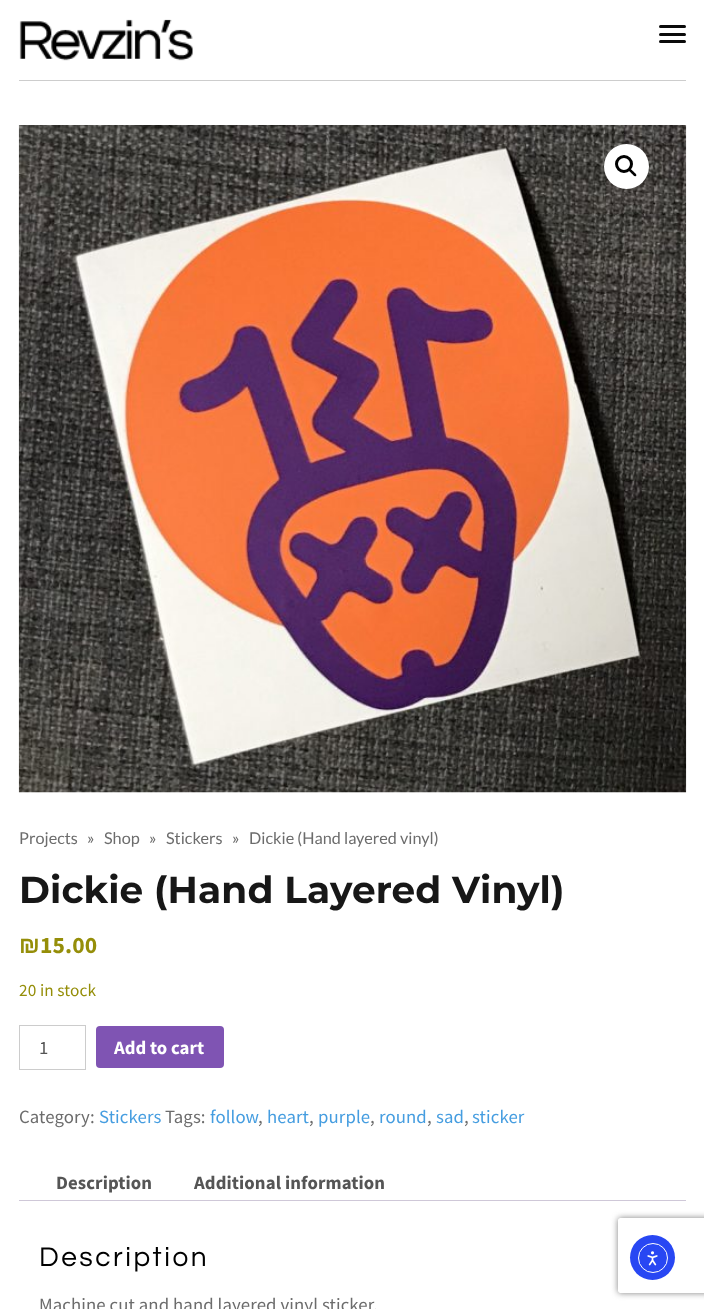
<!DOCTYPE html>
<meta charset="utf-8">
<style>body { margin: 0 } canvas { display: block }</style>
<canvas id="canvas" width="704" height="1309"></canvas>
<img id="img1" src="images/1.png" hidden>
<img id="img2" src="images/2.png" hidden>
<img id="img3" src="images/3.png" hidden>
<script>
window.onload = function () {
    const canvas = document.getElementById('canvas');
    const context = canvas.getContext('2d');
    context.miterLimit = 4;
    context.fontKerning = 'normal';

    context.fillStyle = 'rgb(255, 255, 255)';
    context.fillRect(0, 0, 704, 1309);
    context.drawImage(document.getElementById('img1'), 19, 19, 174, 42);
    context.fillStyle = 'rgb(10, 10, 10)';
    context.beginPath();
    context.roundRect(659, 25, 27, 3, 1.5);
    context.fill();
    context.beginPath();
    context.roundRect(659, 33, 27, 3, 1.5);
    context.fill();
    context.beginPath();
    context.roundRect(659, 40, 27, 3, 1.5);
    context.fill();
    context.fillStyle = 'rgb(205, 205, 205)';
    context.fillRect(19, 80, 667, 1);
    context.drawImage(document.getElementById('img2'), 18, 125, 669, 668);
    context.fillStyle = 'rgb(255, 255, 255)';
    context.beginPath();
    context.arc(626.5, 166.5, 22.5, 0, 2 * Math.PI);
    context.fill();
    context.beginPath();
    context.arc(624, 164, 7.5, 0, 2 * Math.PI);
    context.strokeStyle = 'rgb(0, 0, 0)';
    context.lineWidth = 3;
    context.stroke();
    context.fillStyle = 'rgb(0, 0, 0)';
    context.beginPath();
    context.moveTo(629, 169);
    context.bezierCurveTo(630.5, 167.5, 632.5, 171, 633.5, 171.5);
    context.bezierCurveTo(634, 172.5, 637.5, 174.5, 636, 176);
    context.bezierCurveTo(634.5, 177.5, 632.5, 174, 631.5, 173.5);
    context.bezierCurveTo(631, 172.5, 627.5, 170.5, 629, 169);
    context.closePath();
    context.fill();
    context.strokeStyle = 'rgb(204, 204, 204)';
    context.lineWidth = 1;
    context.strokeRect(19.5, 1025.5, 66, 44);
    context.fillStyle = 'rgb(127, 84, 179)';
    context.beginPath();
    context.roundRect(96, 1026, 128, 42, 4);
    context.fill();
    context.fillStyle = 'rgb(207, 200, 216)';
    context.fillRect(19, 1200, 667, 1);
    context.save();
    context.beginPath();
    context.moveTo(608, 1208);
    context.lineTo(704, 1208);
    context.lineTo(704, 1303);
    context.lineTo(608, 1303);
    context.closePath();
    context.moveTo(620.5, 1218);
    context.lineTo(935.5, 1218);
    context.bezierCurveTo(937, 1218, 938, 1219, 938, 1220.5);
    context.lineTo(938, 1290.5);
    context.bezierCurveTo(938, 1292, 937, 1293, 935.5, 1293);
    context.lineTo(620.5, 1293);
    context.bezierCurveTo(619, 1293, 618, 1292, 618, 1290.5);
    context.lineTo(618, 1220.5);
    context.bezierCurveTo(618, 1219, 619, 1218, 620.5, 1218);
    context.closePath();
    context.clip('evenodd');
    context.fillStyle = 'rgb(128, 128, 128)';
    context.filter = 'blur(3px)';
    context.beginPath();
    context.roundRect(618, 1218, 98, 75, 2.5);
    context.fill();
    context.filter = 'none';
    context.restore();
    context.fillStyle = 'rgb(40, 71, 243)';
    context.beginPath();
    context.arc(652.5, 1257.5, 22.5, 0, 2 * Math.PI);
    context.fill();
    context.beginPath();
    context.arc(653, 1258, 14.5, 0, 2 * Math.PI);
    context.strokeStyle = 'rgb(255, 255, 255)';
    context.stroke();
    context.drawImage(document.getElementById('img3'), 647, 1251, 11, 15);
    context.font = '16.25px Lato';
    context.fillStyle = 'rgb(108, 108, 108)';
    context.fillText('Projects', 19, 844);
    context.fillText('»', 87, 844);
    context.fillText('Shop', 104, 844);
    context.fillText('»', 149, 844);
    context.fillText('Stickers', 166, 844);
    context.fillText('»', 232, 844);
    context.fillText('Dickie (Hand layered vinyl)', 249, 844);
    context.letterSpacing = '0.1px';
    context.font = 'bold 37.5px Montserrat';
    context.fillStyle = 'rgb(23, 23, 23)';
    context.fillText('Dickie (Hand Layered Vinyl)', 19, 903);
    context.font = 'bold 23.5px Liberation Sans';
    context.fillStyle = 'rgb(149, 142, 9)';
    context.fillText('₪', 19, 953);
    context.font = 'bold 23.5px Source Sans Pro';
    context.fillText('15.00', 40, 953);
    context.font = '17.25px Source Sans Pro';
    context.fillText('20 in stock', 19, 996);
    context.letterSpacing = '0px';
    context.font = '18.75px Source Sans Pro';
    context.fillStyle = 'rgb(85, 85, 85)';
    context.fillText('1', 39, 1054);
    context.font = 'bold 18.75px Source Sans Pro';
    context.fillStyle = 'rgb(255, 255, 255)';
    context.fillText('Add to cart', 114, 1054);
    context.letterSpacing = '0.1px';
    context.font = '18.75px Source Sans Pro';
    context.fillStyle = 'rgb(108, 108, 108)';
    context.fillText('Category:', 19, 1123);
    context.fillStyle = 'rgb(69, 157, 224)';
    context.fillText('Stickers', 99, 1123);
    context.fillStyle = 'rgb(108, 108, 108)';
    context.fillText('Tags:', 165, 1123);
    context.fillStyle = 'rgb(69, 157, 224)';
    context.fillText('follow', 210, 1123);
    context.fillStyle = 'rgb(108, 108, 108)';
    context.fillText(',', 258, 1123);
    context.fillStyle = 'rgb(69, 157, 224)';
    context.fillText('heart', 267, 1123);
    context.fillStyle = 'rgb(108, 108, 108)';
    context.fillText(',', 309, 1123);
    context.fillStyle = 'rgb(69, 157, 224)';
    context.fillText('purple', 318, 1123);
    context.fillStyle = 'rgb(108, 108, 108)';
    context.fillText(',', 370, 1123);
    context.fillStyle = 'rgb(69, 157, 224)';
    context.fillText('round', 379, 1123);
    context.fillStyle = 'rgb(108, 108, 108)';
    context.fillText(',', 427, 1123);
    context.fillStyle = 'rgb(69, 157, 224)';
    context.fillText('sad', 436, 1123);
    context.fillStyle = 'rgb(108, 108, 108)';
    context.fillText(',', 464, 1123);
    context.fillStyle = 'rgb(69, 157, 224)';
    context.fillText('sticker', 472, 1123);
    context.font = 'bold 18.75px Source Sans Pro';
    context.fillStyle = 'rgb(85, 85, 85)';
    context.fillText('Description', 56, 1189);
    context.fillText('Additional information', 194, 1189);
    context.letterSpacing = '2.5px';
    context.font = '28px Questrial';
    context.fillStyle = 'rgb(0, 0, 0)';
    context.fillText('Description', 39, 1266);
    context.letterSpacing = '0.1px';
    context.font = '18.75px Source Sans Pro';
    context.fillStyle = 'rgb(108, 108, 108)';
    context.fillText('Machine cut and hand layered vinyl sticker.', 39, 1311);
};
</script>
